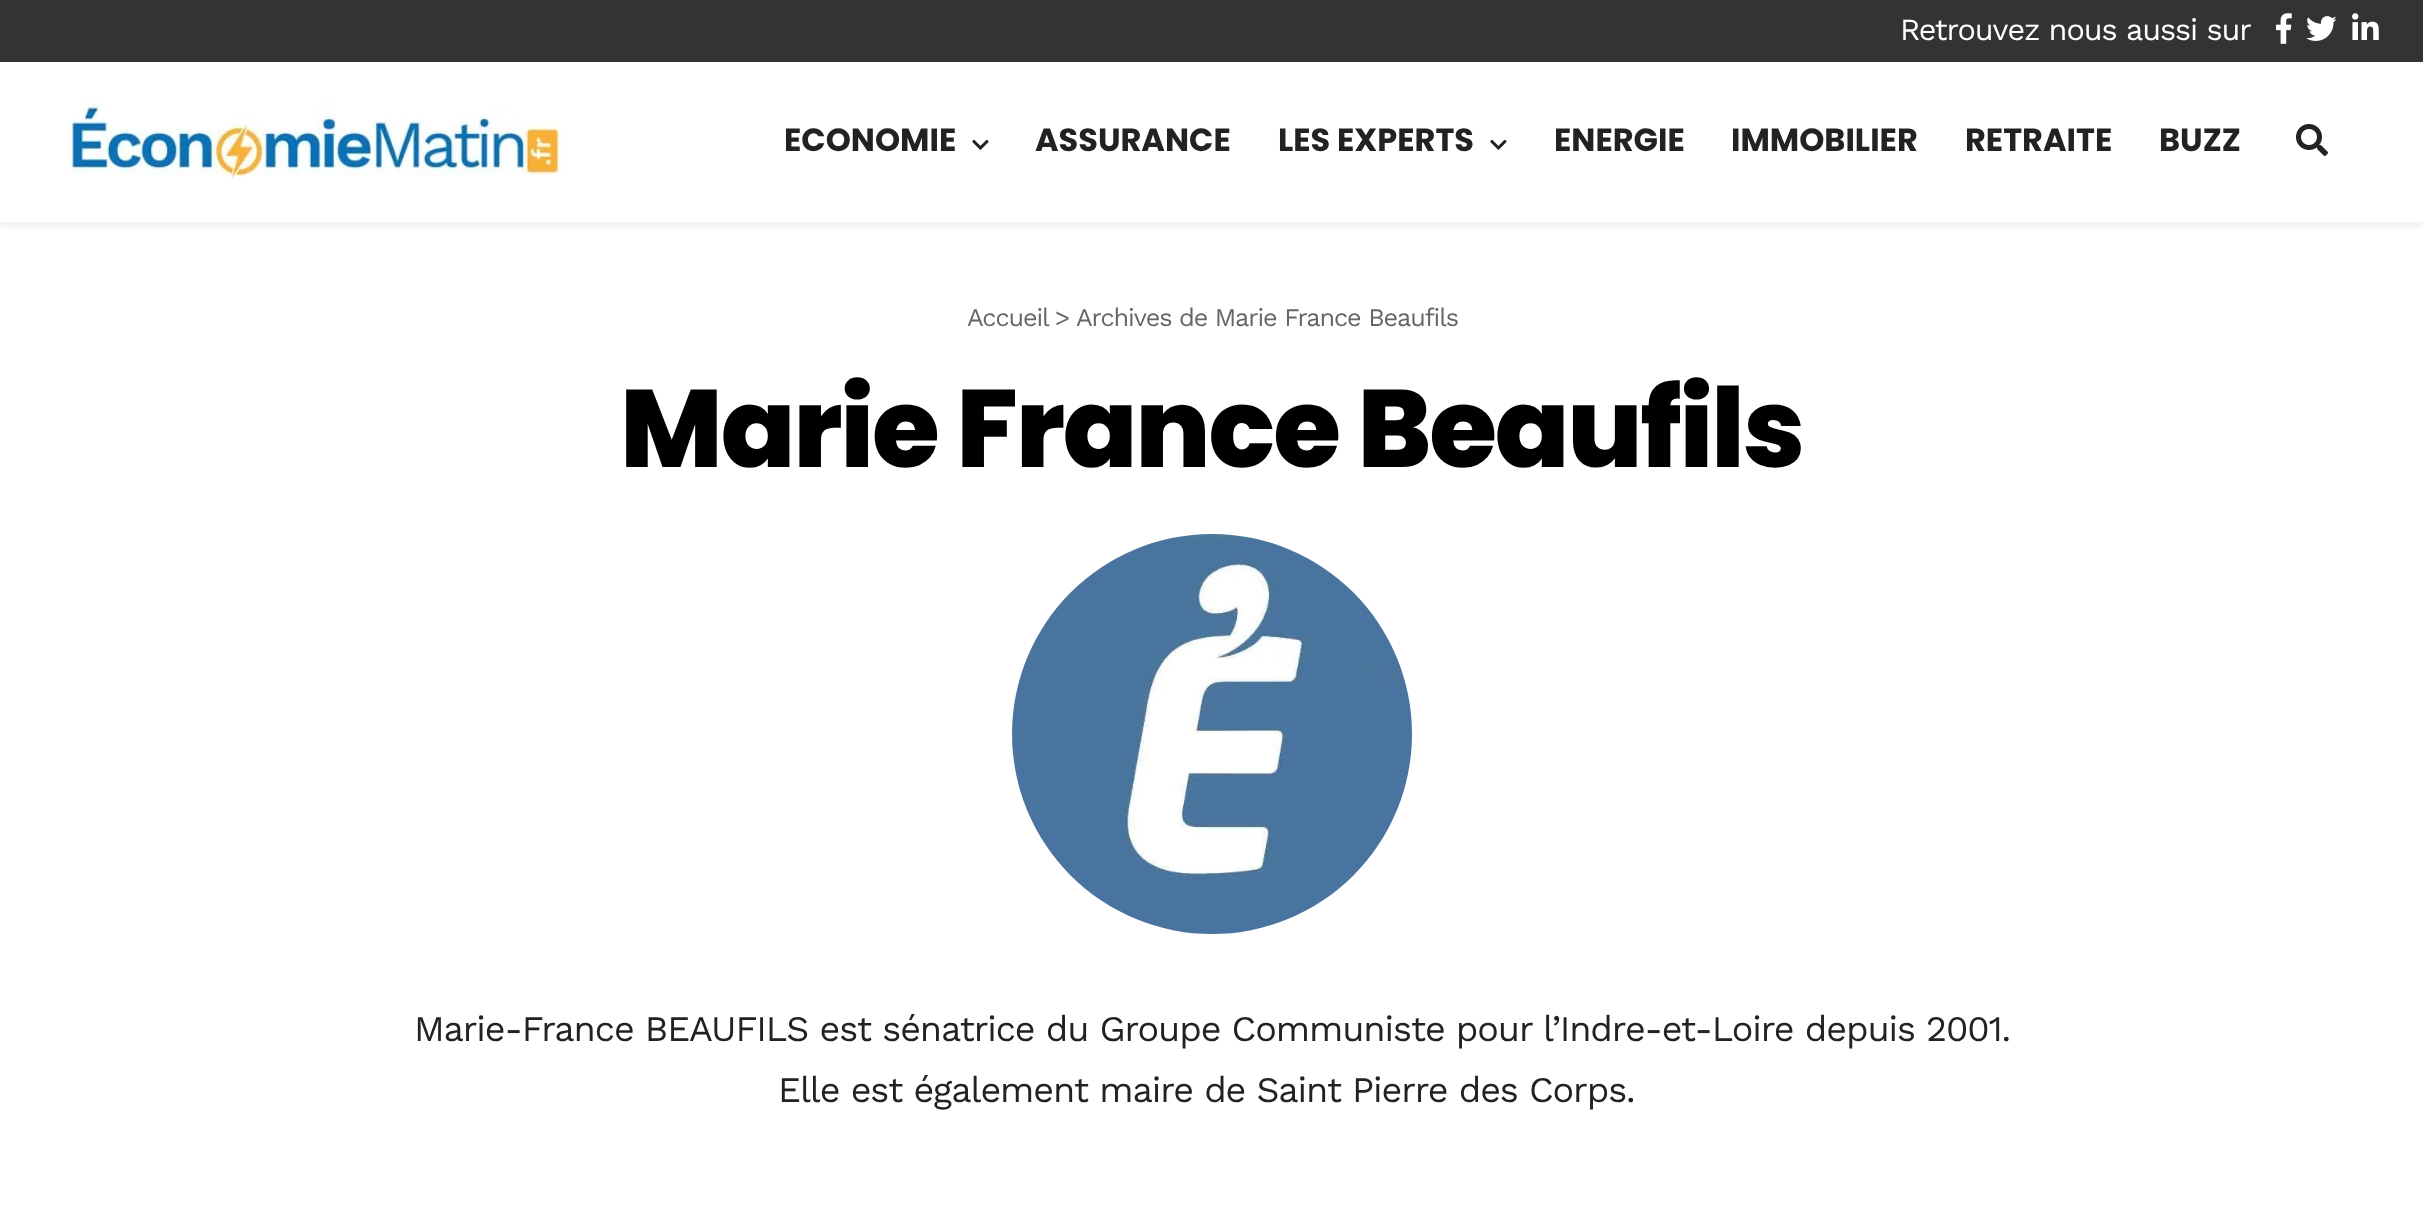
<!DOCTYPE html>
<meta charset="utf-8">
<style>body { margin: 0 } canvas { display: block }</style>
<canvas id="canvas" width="2423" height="1211"></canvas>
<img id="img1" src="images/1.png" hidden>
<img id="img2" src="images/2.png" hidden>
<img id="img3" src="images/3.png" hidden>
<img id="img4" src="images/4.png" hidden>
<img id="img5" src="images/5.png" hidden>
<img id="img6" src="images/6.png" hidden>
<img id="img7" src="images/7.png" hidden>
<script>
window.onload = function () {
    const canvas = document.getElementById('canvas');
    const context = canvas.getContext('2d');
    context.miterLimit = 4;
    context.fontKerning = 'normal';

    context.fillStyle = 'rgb(255, 255, 255)';
    context.fillRect(0, 0, 2423, 1211);
    context.save();
    context.beginPath();
    context.rect(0, 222, 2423, 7);
    context.clip();
    context.fillStyle = 'rgba(0, 0, 0, 0.05)';
    context.filter = 'blur(3px)';
    context.beginPath();
    context.rect(0, 6, 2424, 222);
    context.fill();
    context.filter = 'none';
    context.restore();
    context.fillStyle = 'rgb(51, 51, 51)';
    context.fillRect(0, 0, 2423, 62);
    context.drawImage(document.getElementById('img1'), 2276, 13, 16, 31);
    context.drawImage(document.getElementById('img2'), 2306, 16, 31, 25);
    context.drawImage(document.getElementById('img3'), 2352, 13, 27, 27);
    context.drawImage(document.getElementById('img4'), 70, 102, 495, 78);
    context.drawImage(document.getElementById('img5'), 972, 139, 17, 11);
    context.drawImage(document.getElementById('img5'), 1490, 139, 17, 11);
    context.drawImage(document.getElementById('img6'), 2296, 124, 32, 32);
    context.drawImage(document.getElementById('img7'), 1012, 534, 400, 400);
    context.letterSpacing = '-1.08px';
    context.font = '30.6px Work Sans';
    context.fillStyle = 'rgb(255, 255, 255)';
    context.fillText('Retrouvez nous aussi sur', 1900, 40);
    context.letterSpacing = '0px';
    context.font = 'bold 32px Poppins';
    context.fillStyle = 'rgb(34, 34, 34)';
    context.fillText('ECONOMIE', 784, 151);
    context.fillText('ASSURANCE', 1035, 151);
    context.fillText('LES EXPERTS', 1278, 151);
    context.fillText('ENERGIE', 1554, 151);
    context.fillText('IMMOBILIER', 1731, 151);
    context.fillText('RETRAITE', 1965, 151);
    context.fillText('BUZZ', 2159, 151);
    context.letterSpacing = '-1.08px';
    context.font = '25.25px Work Sans';
    context.fillStyle = 'rgb(102, 102, 102)';
    context.fillText('Accueil', 967, 326);
    context.fillText('>', 1055, 326);
    context.fillText('Archives de Marie France Beaufils', 1076, 326);
    context.letterSpacing = '-2.2px';
    context.font = '800 110px Poppins';
    context.fillStyle = 'rgb(0, 0, 0)';
    context.fillText('Marie France Beaufils', 620, 467);
    context.letterSpacing = '-1.08px';
    context.font = '36px Work Sans';
    context.fillStyle = 'rgb(34, 34, 34)';
    context.fillText('Marie-France BEAUFILS est sénatrice du Groupe Communiste pour l’Indre-et-Loire depuis 2001.', 414, 1041);
    context.fillText('Elle est également maire de Saint Pierre des Corps.', 778, 1102);
};
</script>
